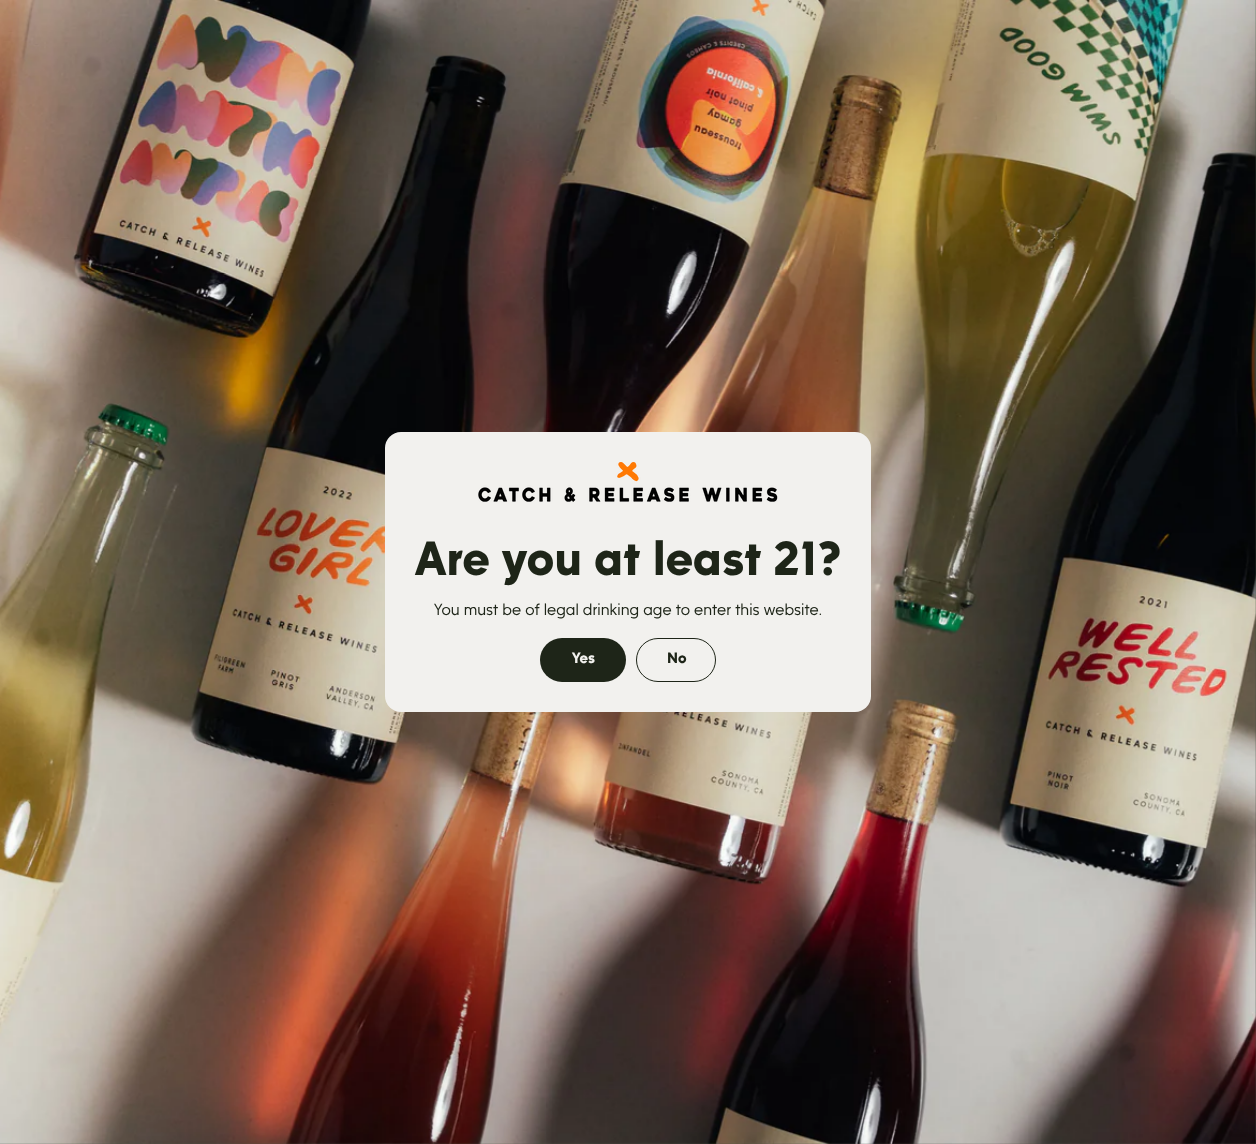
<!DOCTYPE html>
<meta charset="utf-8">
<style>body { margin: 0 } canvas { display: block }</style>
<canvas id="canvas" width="1256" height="1144"></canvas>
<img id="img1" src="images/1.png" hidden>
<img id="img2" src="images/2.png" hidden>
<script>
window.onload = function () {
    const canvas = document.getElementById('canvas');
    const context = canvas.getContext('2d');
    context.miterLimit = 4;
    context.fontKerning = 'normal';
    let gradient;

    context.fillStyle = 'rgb(255, 255, 255)';
    context.fillRect(0, 0, 1256, 1144);
    gradient = context.createLinearGradient(959, 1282, 297, -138);
    gradient.addColorStop(0, 'rgb(77, 71, 69)');
    gradient.addColorStop(0.9, 'rgb(50, 96, 60)');
    context.fillStyle = gradient;
    context.fillRect(0, 0, 1256, 1144);
    context.drawImage(document.getElementById('img1'), 0, 0, 1256, 1144);
    context.fillStyle = 'rgb(242, 241, 238)';
    context.beginPath();
    context.roundRect(385, 432, 486, 280, 16);
    context.fill();
    context.drawImage(document.getElementById('img2'), 478, 462, 300, 40);
    context.fillStyle = 'rgb(30, 37, 24)';
    context.beginPath();
    context.roundRect(540, 638, 86, 44, 22);
    context.fill();
    context.beginPath();
    context.roundRect(636.5, 638.5, 79, 43, 21.5);
    context.strokeStyle = 'rgb(30, 37, 24)';
    context.stroke();
    context.font = 'bold 45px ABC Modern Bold';
    context.fillText('Are you at least 21?', 415, 575);
    context.font = '200 15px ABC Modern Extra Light';
    context.fillText('You must be of legal drinking age to enter this website.', 434, 615);
    context.font = 'bold 14px ABC Modern Bold';
    context.fillStyle = 'rgb(242, 241, 238)';
    context.fillText('Yes', 572, 663);
    context.fillStyle = 'rgb(30, 37, 24)';
    context.fillText('No', 667, 663);
};
</script>
